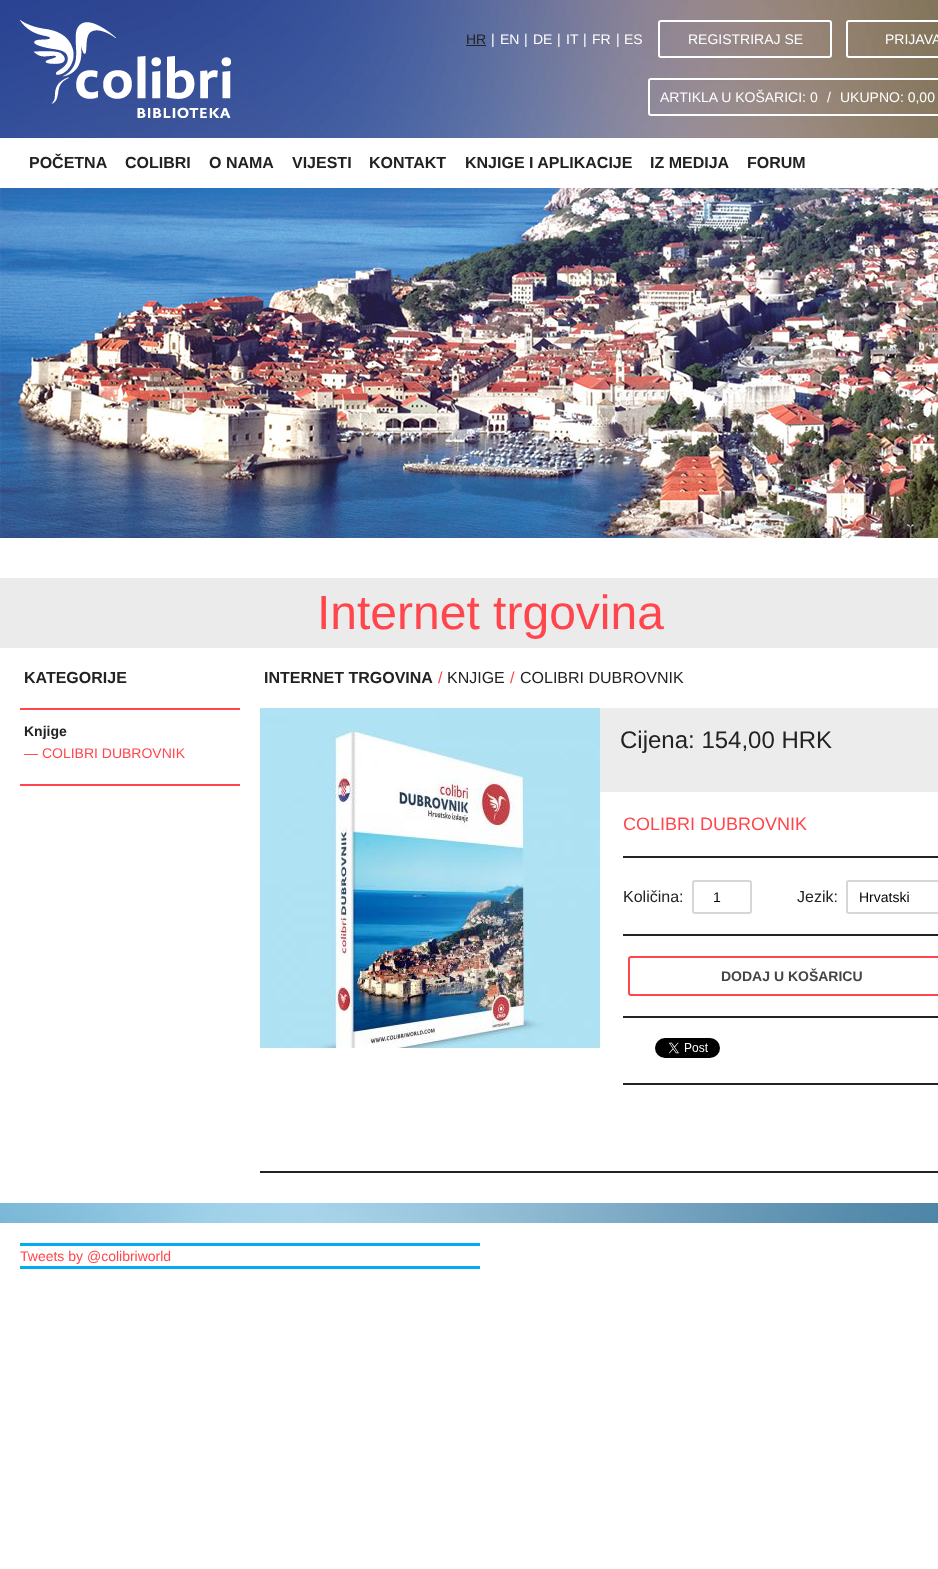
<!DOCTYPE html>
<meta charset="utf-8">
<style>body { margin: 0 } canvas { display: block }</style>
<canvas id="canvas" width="938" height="1569"></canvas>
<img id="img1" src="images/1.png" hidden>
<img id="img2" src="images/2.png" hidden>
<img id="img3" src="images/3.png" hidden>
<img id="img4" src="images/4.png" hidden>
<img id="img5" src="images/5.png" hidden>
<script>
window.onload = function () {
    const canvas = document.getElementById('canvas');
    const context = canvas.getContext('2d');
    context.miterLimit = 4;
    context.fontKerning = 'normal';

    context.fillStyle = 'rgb(255, 255, 255)';
    context.fillRect(0, 0, 938, 1569);
    context.drawImage(document.getElementById('img1'), 0, 0, 938, 1223);
    context.drawImage(document.getElementById('img2'), 20, 20, 211, 98);
    context.fillStyle = 'rgb(34, 34, 34)';
    context.fillRect(466, 45, 20, 1);
    context.beginPath();
    context.roundRect(659, 21, 172, 36, 2);
    context.strokeStyle = 'rgb(255, 255, 255)';
    context.lineWidth = 2;
    context.stroke();
    context.beginPath();
    context.roundRect(847, 21, 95, 36, 2);
    context.stroke();
    context.beginPath();
    context.roundRect(649, 79, 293, 36, 2);
    context.stroke();
    context.fillStyle = 'rgb(255, 255, 255)';
    context.fillRect(0, 138, 938, 50);
    context.fillRect(0, 538, 938, 40);
    context.drawImage(document.getElementById('img3'), 0, 188, 938, 350);
    context.fillRect(0, 648, 938, 555);
    context.fillStyle = 'rgb(235, 235, 235)';
    context.fillRect(0, 578, 938, 70);
    context.fillStyle = 'rgb(255, 70, 76)';
    context.fillRect(20, 708, 220, 2);
    context.fillRect(20, 784, 220, 2);
    context.fillStyle = 'rgb(34, 34, 34)';
    context.fillRect(260, 1171, 678, 2);
    context.drawImage(document.getElementById('img4'), 260, 708, 340, 340);
    context.fillStyle = 'rgb(236, 236, 236)';
    context.fillRect(600, 708, 338, 84);
    context.fillStyle = 'rgb(34, 34, 34)';
    context.fillRect(623, 856, 315, 2);
    context.fillRect(623, 934, 315, 2);
    context.beginPath();
    context.roundRect(693, 881, 58, 32, 2);
    context.strokeStyle = 'rgb(214, 214, 214)';
    context.stroke();
    context.beginPath();
    context.roundRect(847, 881, 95, 32, 2);
    context.stroke();
    context.fillRect(623, 1016, 315, 2);
    context.beginPath();
    context.roundRect(629, 957, 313, 38, 2);
    context.strokeStyle = 'rgb(255, 70, 76)';
    context.stroke();
    context.fillRect(623, 1083, 315, 2);
    context.drawImage(document.getElementById('img5'), 655, 1038, 65, 20);
    context.fillStyle = 'rgb(0, 174, 239)';
    context.fillRect(20, 1243, 460, 3);
    context.fillRect(20, 1266, 460, 3);
    context.font = '14px Liberation Sans';
    context.fillStyle = 'rgb(34, 34, 34)';
    context.fillText('HR', 466, 44);
    context.fillStyle = 'rgb(255, 255, 255)';
    context.fillText('|', 491, 44);
    context.fillText('EN', 500, 44);
    context.fillText('|', 524, 44);
    context.fillText('DE', 533, 44);
    context.fillText('|', 557, 44);
    context.fillText('IT', 566, 44);
    context.fillText('|', 583, 44);
    context.fillText('FR', 592, 44);
    context.fillText('|', 616, 44);
    context.fillText('ES', 624, 44);
    context.fillText('REGISTRIRAJ SE', 688, 44);
    context.fillText('PRIJAVA', 885, 44);
    context.fillText('ARTIKLA U KOŠARICI: 0', 660, 102);
    context.fillText('/', 827, 102);
    context.fillText('UKUPNO: 0,00', 840, 102);
    context.font = 'bold 16px Liberation Sans';
    context.fillStyle = 'rgb(34, 34, 34)';
    context.fillText('POČETNA', 29, 168);
    context.fillText('COLIBRI', 125, 168);
    context.fillText('O NAMA', 209, 168);
    context.fillText('VIJESTI', 292, 168);
    context.fillText('KONTAKT', 369, 168);
    context.fillText('KNJIGE I APLIKACIJE', 465, 168);
    context.fillText('IZ MEDIJA', 650, 168);
    context.fillText('FORUM', 747, 168);
    context.font = '48px Liberation Sans';
    context.fillStyle = 'rgb(255, 70, 76)';
    context.fillText('Internet trgovina', 317, 629);
    context.font = 'bold 16px Liberation Sans';
    context.fillStyle = 'rgb(34, 34, 34)';
    context.fillText('KATEGORIJE', 24, 683);
    context.font = 'bold 14px Liberation Sans';
    context.fillText('Knjige', 24, 736);
    context.font = '14px Liberation Sans';
    context.fillStyle = 'rgb(255, 70, 76)';
    context.fillText('― COLIBRI DUBROVNIK', 24, 758);
    context.font = 'bold 16px Liberation Sans';
    context.fillStyle = 'rgb(34, 34, 34)';
    context.fillText('INTERNET TRGOVINA', 264, 683);
    context.font = '16px Liberation Sans';
    context.fillStyle = 'rgb(255, 70, 76)';
    context.fillText('/', 438, 683);
    context.fillStyle = 'rgb(34, 34, 34)';
    context.fillText('KNJIGE', 447, 683);
    context.fillStyle = 'rgb(255, 70, 76)';
    context.fillText('/', 510, 683);
    context.fillStyle = 'rgb(34, 34, 34)';
    context.fillText('COLIBRI DUBROVNIK', 520, 683);
    context.font = '24px Liberation Sans';
    context.fillText('Cijena: 154,00 HRK', 620, 748);
    context.font = '18px Liberation Sans';
    context.fillStyle = 'rgb(255, 70, 76)';
    context.fillText('COLIBRI DUBROVNIK', 623, 830);
    context.font = '16px Liberation Sans';
    context.fillStyle = 'rgb(34, 34, 34)';
    context.fillText('Količina:', 623, 902);
    context.font = '14px Liberation Sans';
    context.fillStyle = 'rgb(0, 0, 0)';
    context.fillText('1', 713, 902);
    context.font = '16px Liberation Sans';
    context.fillStyle = 'rgb(34, 34, 34)';
    context.fillText('Jezik:', 797, 902);
    context.font = '14px Liberation Sans';
    context.fillStyle = 'rgb(0, 0, 0)';
    context.fillText('Hrvatski', 859, 902);
    context.font = 'bold 14px Liberation Sans';
    context.fillStyle = 'rgb(68, 68, 68)';
    context.fillText('DODAJ U KOŠARICU', 721, 981);
    context.font = '14px Liberation Sans';
    context.fillStyle = 'rgb(255, 70, 76)';
    context.fillText('Tweets by @colibriworld', 20, 1261);
};
</script>
